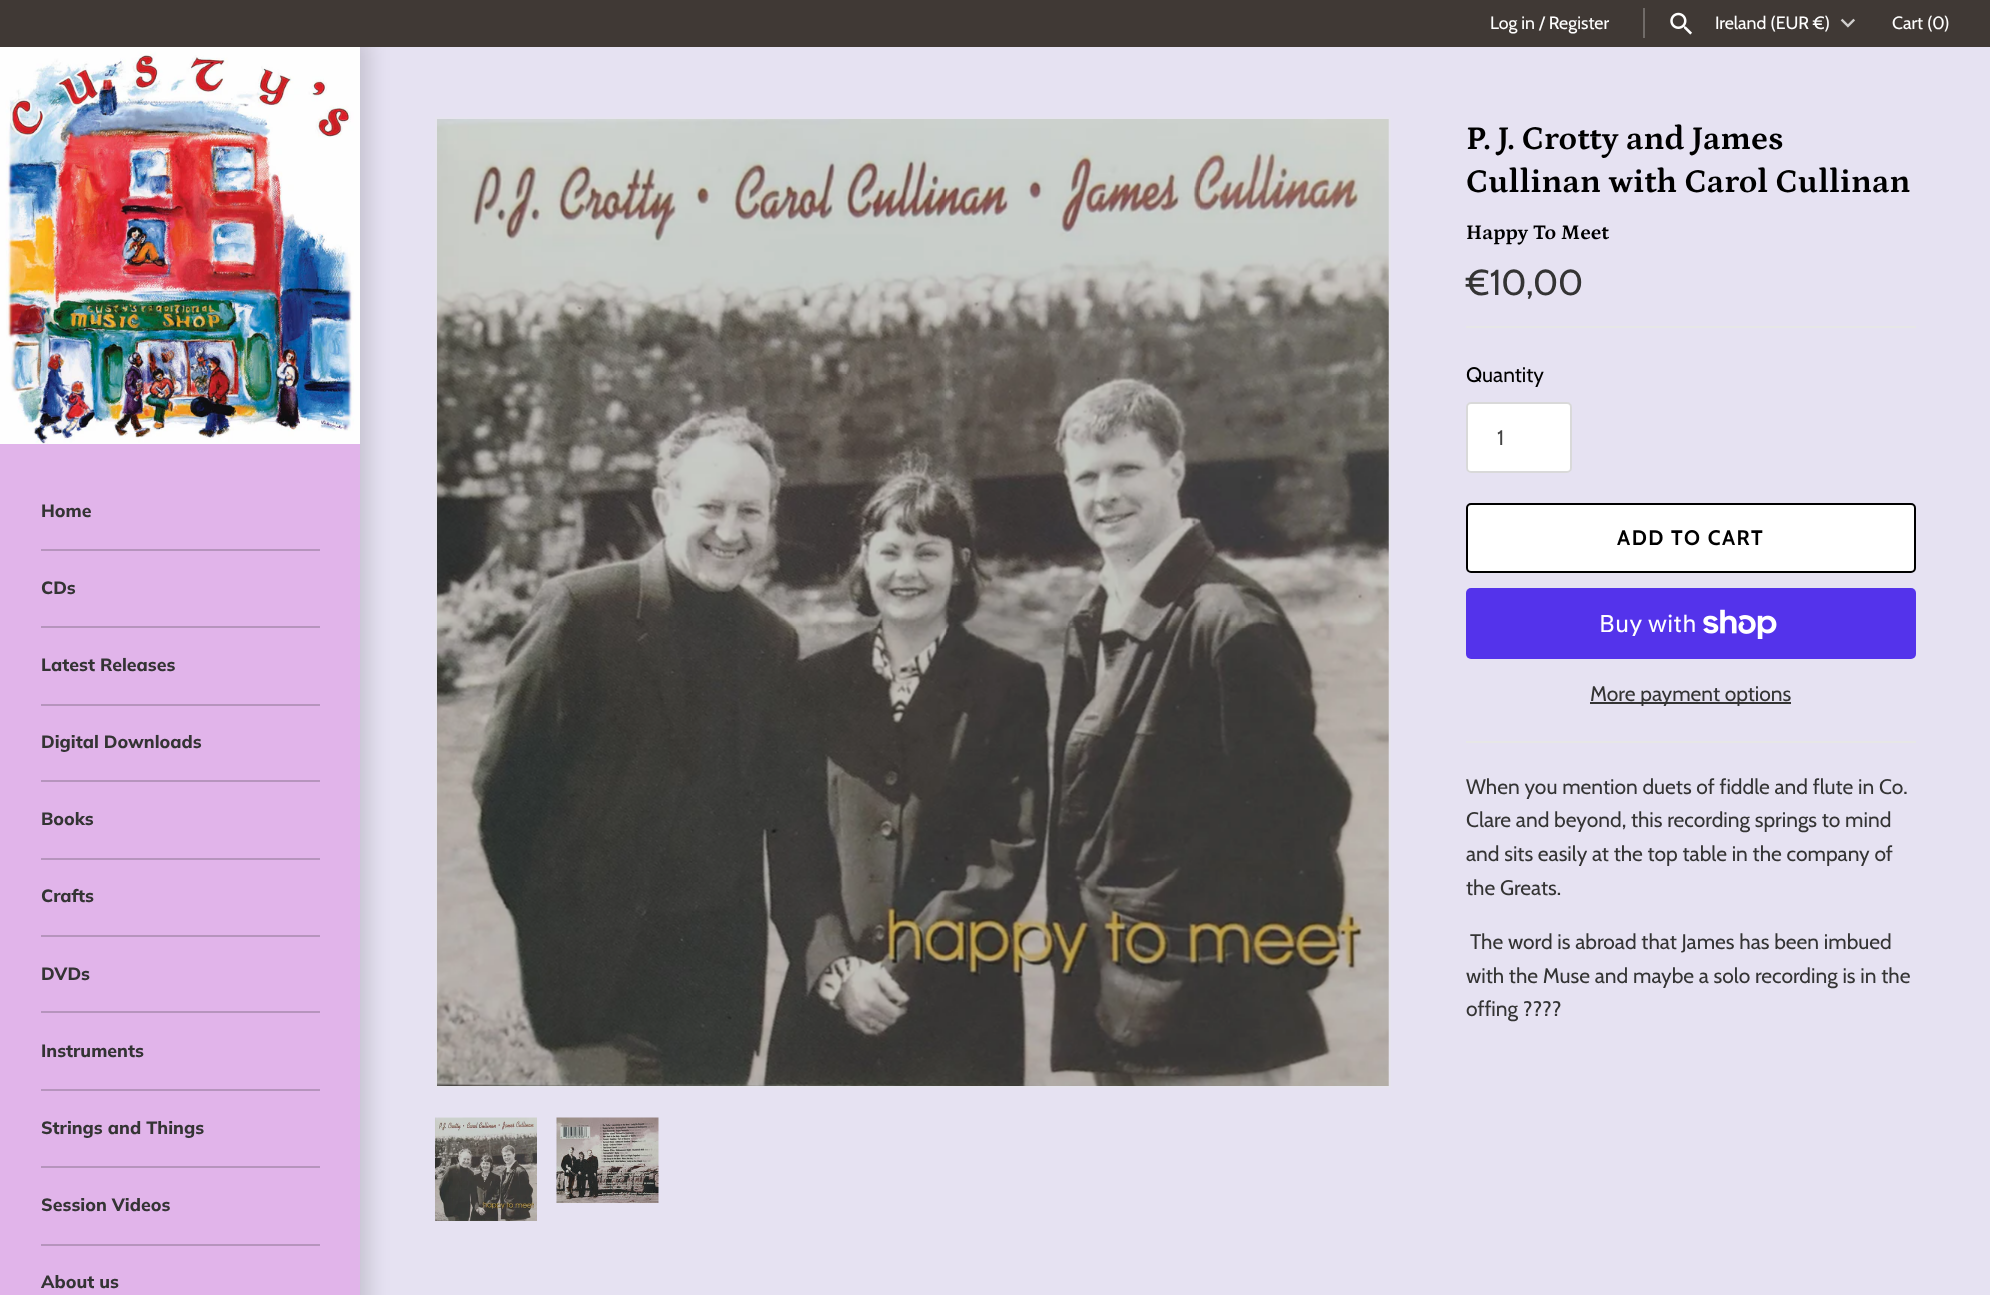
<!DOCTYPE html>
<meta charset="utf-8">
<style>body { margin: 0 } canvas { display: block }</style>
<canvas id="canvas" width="1990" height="1295"></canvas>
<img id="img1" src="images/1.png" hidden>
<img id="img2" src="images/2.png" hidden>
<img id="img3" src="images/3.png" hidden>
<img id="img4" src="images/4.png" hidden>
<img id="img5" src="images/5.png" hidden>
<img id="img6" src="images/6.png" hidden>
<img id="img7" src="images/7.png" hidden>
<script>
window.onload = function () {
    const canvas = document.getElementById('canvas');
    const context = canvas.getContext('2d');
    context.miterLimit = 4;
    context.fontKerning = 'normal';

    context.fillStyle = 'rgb(230, 226, 242)';
    context.fillRect(0, 0, 1990, 1295);
    context.fillStyle = 'rgba(0, 0, 0, 0.15)';
    context.filter = 'blur(11px)';
    context.beginPath();
    context.rect(-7, 39, 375, 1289);
    context.fill();
    context.filter = 'none';
    context.fillStyle = 'rgb(64, 57, 53)';
    context.fillRect(0, 0, 1990, 47);
    context.fillStyle = 'rgb(112, 107, 104)';
    context.fillRect(1643, 8, 2, 30);
    context.drawImage(document.getElementById('img1'), 1670, 12, 22, 23);
    context.drawImage(document.getElementById('img2'), 1840, 18, 15, 10);
    context.fillStyle = 'rgb(225, 180, 234)';
    context.fillRect(0, 444, 360, 851);
    context.drawImage(document.getElementById('img3'), 0, 47, 360, 397);
    context.fillStyle = 'rgb(182, 148, 189)';
    context.fillRect(41, 549, 279, 2);
    context.fillRect(41, 626, 279, 2);
    context.fillRect(41, 704, 279, 2);
    context.fillRect(41, 780, 279, 2);
    context.fillRect(41, 858, 279, 2);
    context.fillRect(41, 935, 279, 2);
    context.fillRect(41, 1011, 279, 2);
    context.fillRect(41, 1089, 279, 2);
    context.fillRect(41, 1166, 279, 2);
    context.fillRect(41, 1244, 279, 2);
    context.strokeStyle = 'rgb(230, 228, 238)';
    context.lineWidth = 2;
    context.strokeRect(436, 118, 954, 969);
    context.drawImage(document.getElementById('img4'), 437, 119, 952, 967);
    context.drawImage(document.getElementById('img5'), 435, 1117, 102, 104);
    context.drawImage(document.getElementById('img6'), 556, 1117, 103, 86);
    context.fillStyle = 'rgb(231, 231, 231)';
    context.fillRect(1466, 326, 450, 2);
    context.fillStyle = 'rgb(255, 255, 255)';
    context.beginPath();
    context.roundRect(1466, 402, 106, 71, 5);
    context.fill();
    context.beginPath();
    context.roundRect(1467, 403, 104, 69, 4);
    context.strokeStyle = 'rgba(0, 0, 0, 0.15)';
    context.stroke();
    context.beginPath();
    context.roundRect(1467, 504, 448, 68, 4);
    context.fill();
    context.strokeStyle = 'rgb(0, 0, 0)';
    context.stroke();
    context.fillStyle = 'rgb(84, 51, 235)';
    context.beginPath();
    context.roundRect(1466, 588, 450, 71, 5);
    context.fill();
    context.drawImage(document.getElementById('img7'), 1703, 609, 74, 30);
    context.fillStyle = 'rgb(52, 52, 52)';
    context.fillRect(1590, 702, 201, 2);
    context.fillStyle = 'rgb(231, 231, 231)';
    context.fillRect(1466, 741, 450, 2);
    context.font = '17.75px Cabin';
    context.fillStyle = 'rgb(255, 255, 255)';
    context.fillText('Log in / Register', 1490, 29);
    context.fillText('Ireland (EUR €)', 1715, 29);
    context.fillText('Cart (0)', 1892, 29);
    context.font = '21px Cabin';
    context.fillStyle = 'rgb(161, 183, 211)';
    context.fillText('...', 255, 125);
    context.font = '800 17.75px Muli';
    context.fillStyle = 'rgb(52, 52, 52)';
    context.fillText('Home', 41, 517);
    context.fillText('CDs', 41, 594);
    context.fillText('Latest Releases', 41, 671);
    context.fillText('Digital Downloads', 41, 748);
    context.fillText('Books', 41, 825);
    context.fillText('Crafts', 41, 902);
    context.fillText('DVDs', 41, 980);
    context.fillText('Instruments', 41, 1057);
    context.fillText('Strings and Things', 41, 1134);
    context.fillText('Session Videos', 41, 1211);
    context.fillText('About us', 41, 1288);
    context.font = 'bold 33.6px Petrona';
    context.fillStyle = 'rgb(0, 0, 0)';
    context.fillText('P. J. Crotty and James', 1466, 149);
    context.fillText('Cullinan with Carol Cullinan', 1466, 192);
    context.font = 'bold 21px Petrona';
    context.fillText('Happy To Meet', 1466, 239);
    context.font = '36px Cabin';
    context.fillStyle = 'rgb(52, 52, 52)';
    context.fillText('€10,00', 1466, 295);
    context.font = '21px Cabin';
    context.fillStyle = 'rgb(0, 0, 0)';
    context.fillText('Quantity', 1466, 382);
    context.fillStyle = 'rgb(68, 68, 68)';
    context.fillText('1', 1497, 445);
    context.letterSpacing = '1.5px';
    context.font = 'bold 21px Cabin';
    context.fillStyle = 'rgb(0, 0, 0)';
    context.fillText('ADD TO CART', 1617, 545);
    context.letterSpacing = '0px';
    context.font = '24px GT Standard';
    context.fillStyle = 'rgb(255, 255, 255)';
    context.fillText('Buy with', 1599, 632);
    context.font = '21px Cabin';
    context.fillStyle = 'rgb(52, 52, 52)';
    context.fillText('More payment options', 1590, 701);
    context.fillText('When you mention duets of fiddle and flute in Co.', 1466, 794);
    context.fillText('Clare and beyond, this recording springs to mind', 1466, 827);
    context.fillText('and sits easily at the top table in the company of', 1466, 861);
    context.fillText('the Greats.', 1466, 895);
    context.fillText('The word is abroad that James has been imbued', 1470, 949);
    context.fillText('with the Muse and maybe a solo recording is in the', 1466, 983);
    context.fillText('offing ????', 1466, 1016);
};
</script>
